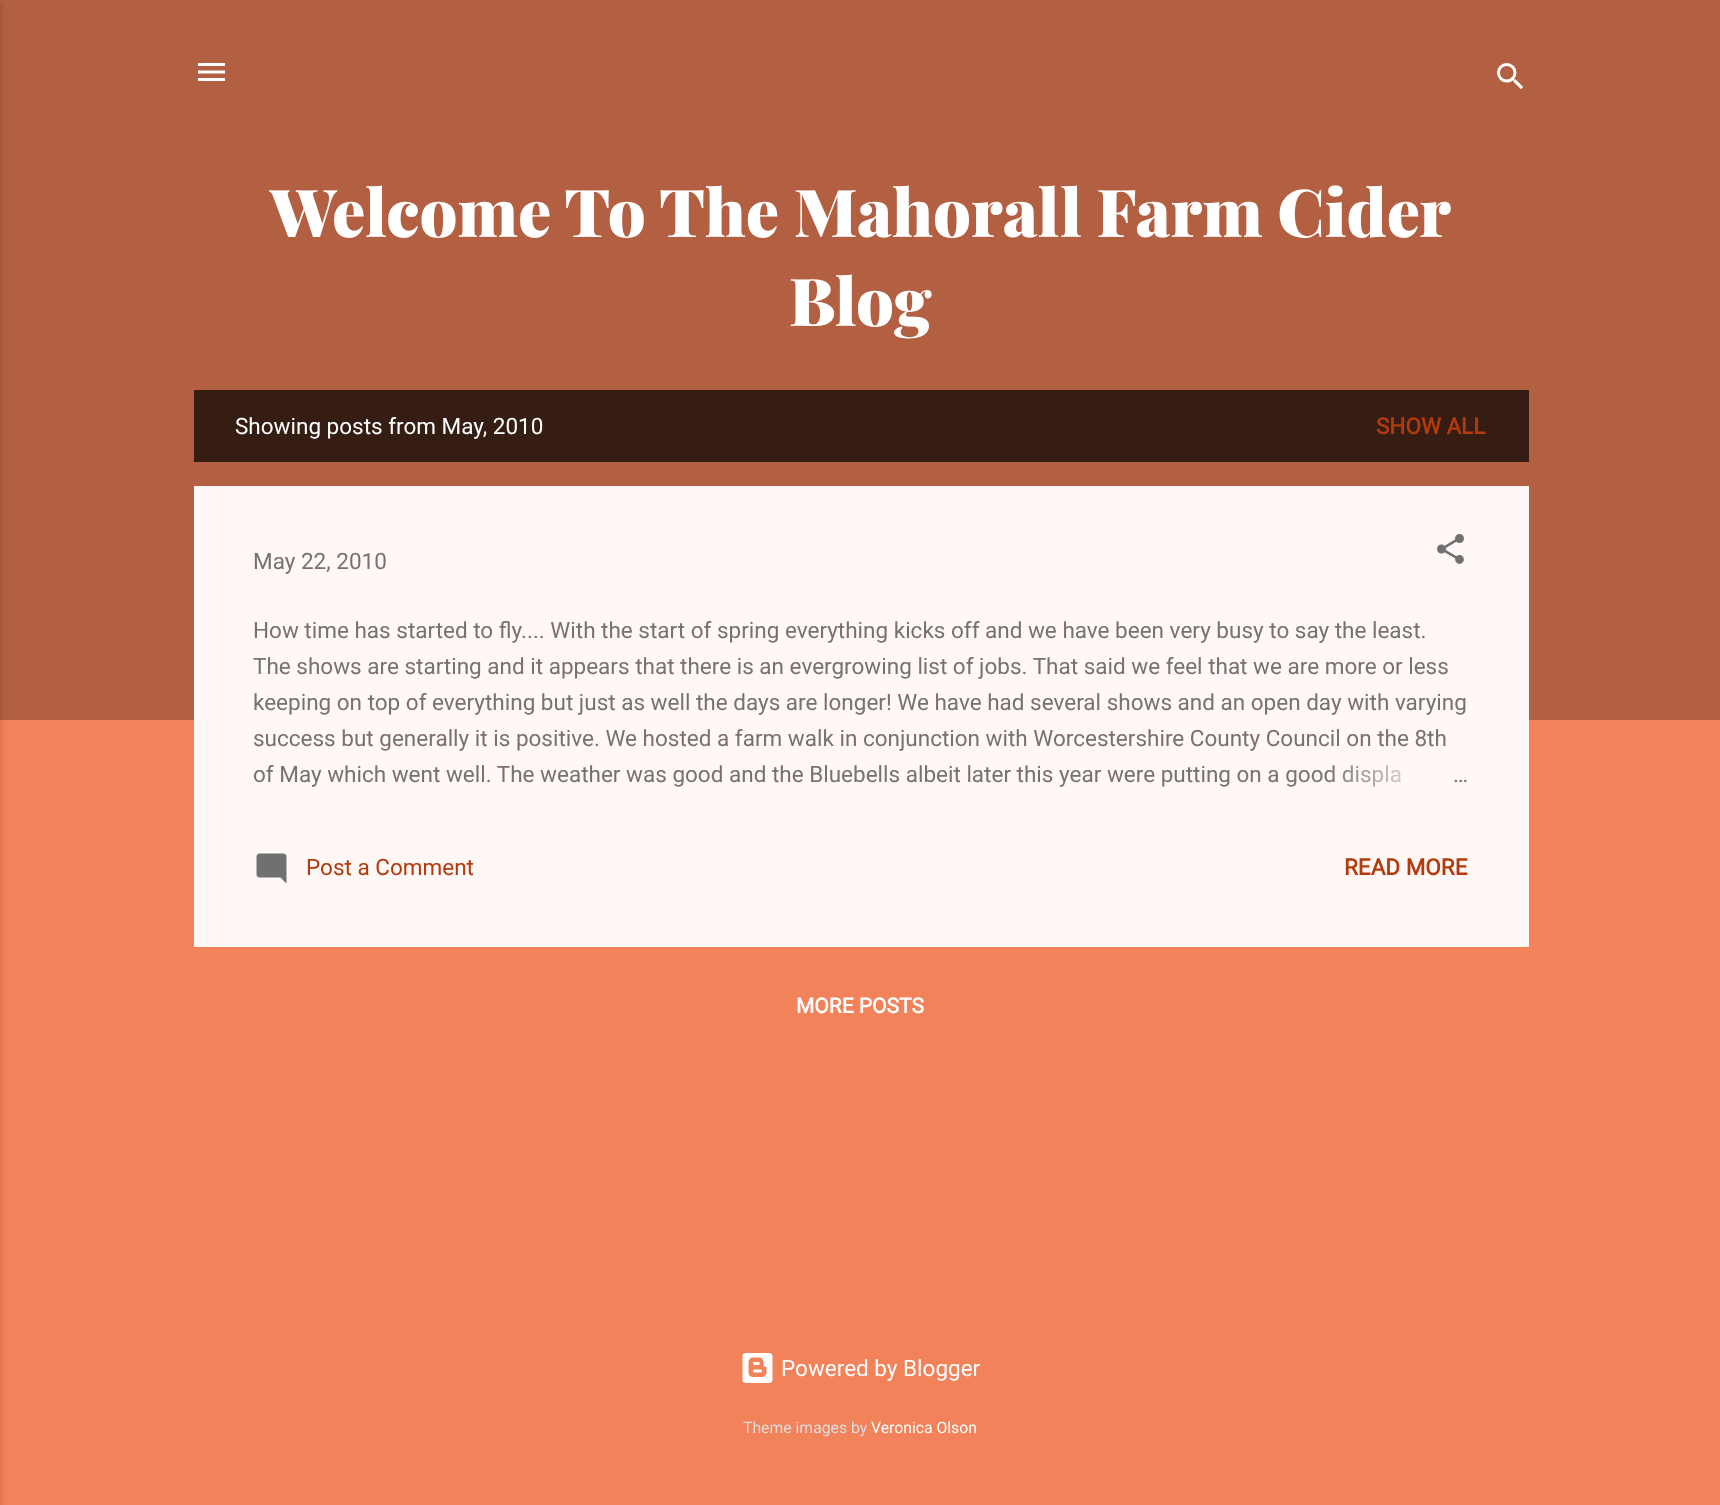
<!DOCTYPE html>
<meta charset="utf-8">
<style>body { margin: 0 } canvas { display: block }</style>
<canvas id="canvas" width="1720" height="1505"></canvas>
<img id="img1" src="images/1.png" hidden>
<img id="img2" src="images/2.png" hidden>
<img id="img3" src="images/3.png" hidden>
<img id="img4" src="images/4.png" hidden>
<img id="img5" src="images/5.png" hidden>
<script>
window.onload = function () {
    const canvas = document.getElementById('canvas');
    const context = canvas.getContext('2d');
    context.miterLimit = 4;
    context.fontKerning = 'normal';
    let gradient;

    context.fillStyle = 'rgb(242, 130, 90)';
    context.fillRect(0, 0, 1720, 1505);
    context.fillStyle = 'rgb(179, 95, 66)';
    context.fillRect(0, 0, 1720, 720);
    context.fillStyle = 'rgba(0, 0, 0, 0.1)';
    context.filter = 'blur(2px)';
    context.beginPath();
    context.rect(-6, 2, 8, 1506);
    context.fill();
    context.filter = 'none';
    context.drawImage(document.getElementById('img1'), 198, 63, 27, 18);
    context.drawImage(document.getElementById('img2'), 1497, 63, 26, 27);
    context.fillStyle = 'rgb(54, 29, 20)';
    context.fillRect(194, 390, 1335, 72);
    context.fillStyle = 'rgb(255, 248, 246)';
    context.fillRect(194, 486, 1335, 461);
    context.drawImage(document.getElementById('img3'), 1437, 534, 27, 30);
    context.drawImage(document.getElementById('img4'), 256, 853, 31, 31);
    context.drawImage(document.getElementById('img5'), 742, 1353, 31, 30);
    context.font = '900 66px Playfair Display';
    context.fillStyle = 'rgb(255, 255, 255)';
    context.fillText('Welcome To The Mahorall Farm Cider', 270, 237);
    context.fillText('Blog', 789, 326);
    context.font = '22.5px Roboto';
    context.fillText('Showing posts from May, 2010', 235, 434);
    context.font = 'bold 22.5px Roboto';
    context.fillStyle = 'rgb(179, 58, 13)';
    context.fillText('SHOW ALL', 1376, 434);
    context.font = '22.5px Roboto';
    context.fillStyle = 'rgb(117, 114, 113)';
    context.fillText('May 22, 2010', 253, 569);
    context.fillText('How time has started to fly.... With the start of spring everything kicks off and we have been very busy to say the least.', 253, 638);
    context.fillText('The shows are starting and it appears that there is an evergrowing list of jobs. That said we feel that we are more or less', 253, 674);
    context.fillText('keeping on top of everything but just as well the days are longer! We have had several shows and an open day with varying', 253, 710);
    context.fillText('success but generally it is positive. We hosted a farm walk in conjunction with Worcestershire County Council on the 8th', 253, 746);
    context.save();
    context.beginPath();
    context.rect(254, 614, 1215, 180);
    context.clip();
    context.fillText('of May which went well. The weather was good and the Bluebells albeit later this year were putting on a good displa', 253, 782);
    context.restore();
    gradient = context.createLinearGradient(1469, 776, 1325, 776);
    gradient.addColorStop(0, 'rgb(255, 248, 246)');
    gradient.addColorStop(0.2, 'rgb(255, 248, 246)');
    gradient.addColorStop(1, 'rgba(255, 248, 246, 0)');
    context.fillStyle = gradient;
    context.fillRect(1327, 765, 74, 22);
    context.fillStyle = 'rgb(117, 114, 113)';
    context.fillText('…', 1453, 782);
    context.fillStyle = 'rgb(179, 58, 13)';
    context.fillText('Post a Comment', 306, 875);
    context.font = 'bold 22.5px Roboto';
    context.fillText('READ MORE', 1344, 875);
    context.font = 'bold 21px Roboto';
    context.fillStyle = 'rgb(255, 255, 255)';
    context.fillText('MORE POSTS', 796, 1013);
    context.font = '22.5px Roboto';
    context.fillText('Powered by Blogger', 781, 1376);
    context.font = '15.75px Roboto';
    context.fillStyle = 'rgb(221, 221, 221)';
    context.fillText('Theme images by', 743, 1433);
    context.fillStyle = 'rgb(255, 255, 255)';
    context.fillText('Veronica Olson', 871, 1433);
};
</script>
